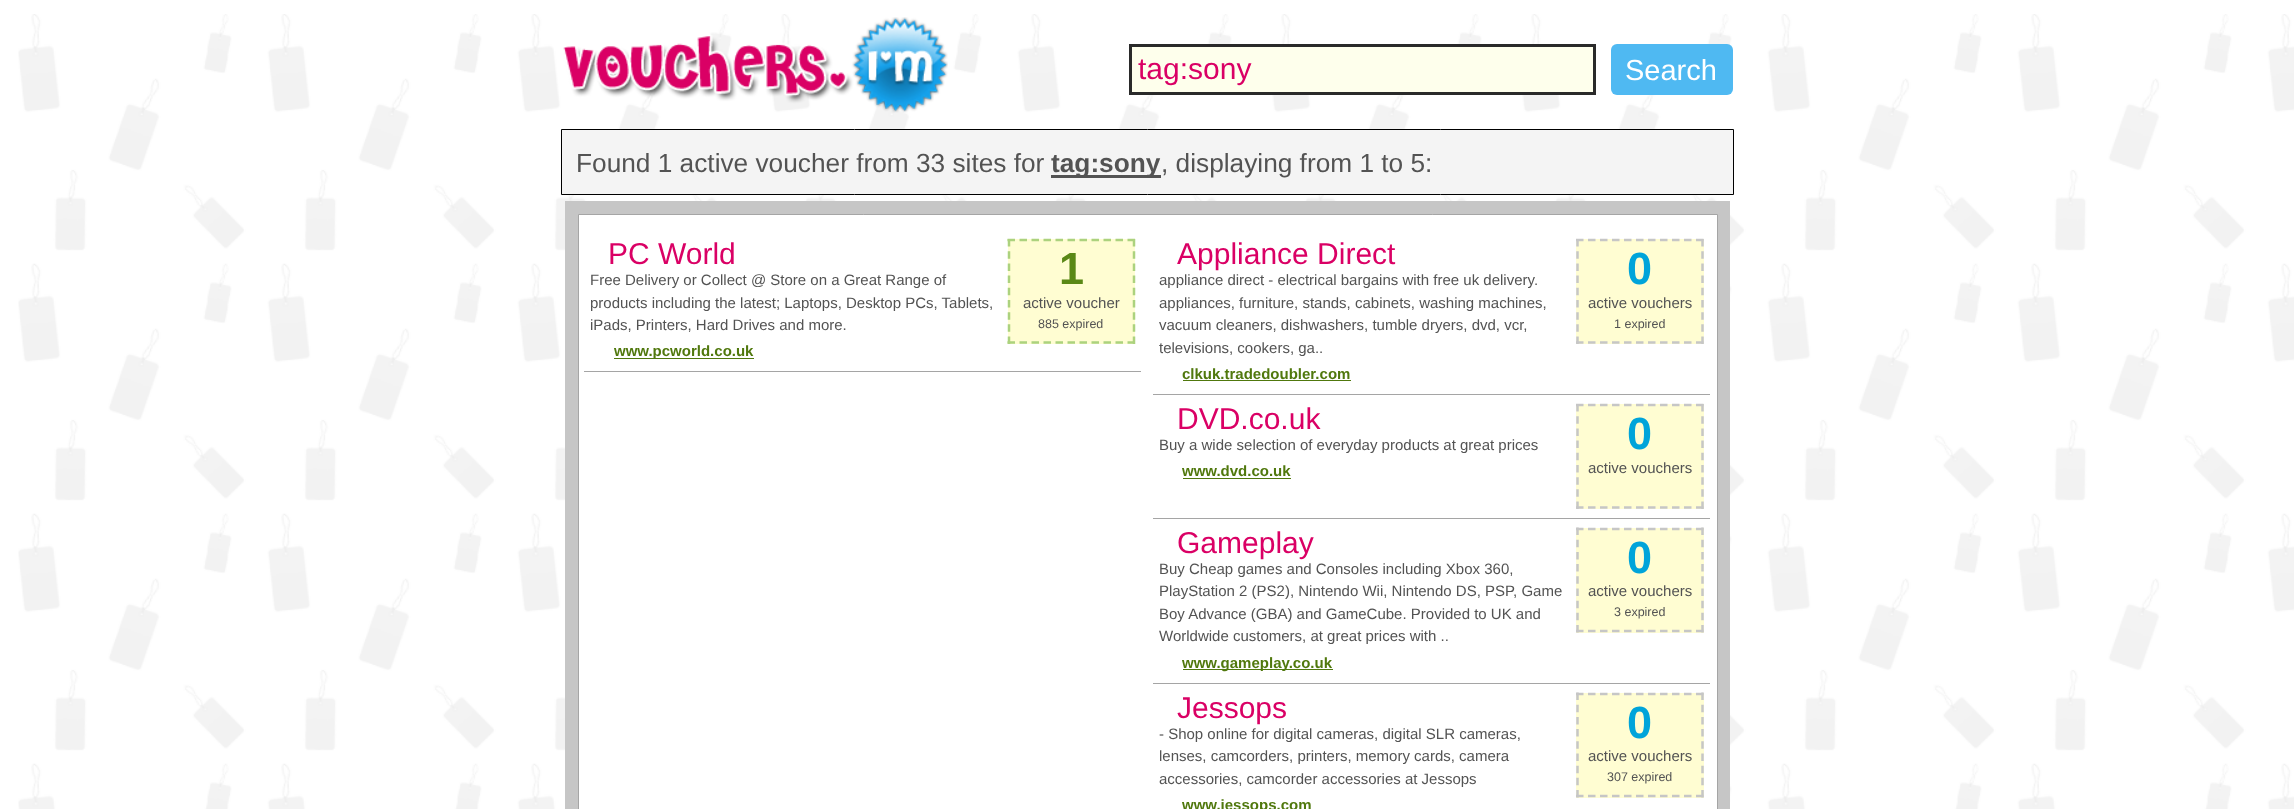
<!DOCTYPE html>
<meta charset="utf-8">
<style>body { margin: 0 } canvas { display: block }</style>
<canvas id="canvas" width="2294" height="809"></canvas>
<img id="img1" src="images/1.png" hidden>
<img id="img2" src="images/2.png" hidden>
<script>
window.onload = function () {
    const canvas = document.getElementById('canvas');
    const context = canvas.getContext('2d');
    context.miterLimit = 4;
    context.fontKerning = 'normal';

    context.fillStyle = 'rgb(255, 255, 255)';
    context.fillRect(0, 0, 2294, 809);
    context.drawImage(document.getElementById('img1'), 18, 14, 2276, 795);
    context.drawImage(document.getElementById('img2'), 563, 17, 385, 96);
    context.fillStyle = 'rgb(254, 255, 236)';
    context.beginPath();
    context.rect(1130.5, 45.5, 464, 48);
    context.fill();
    context.strokeStyle = 'rgb(42, 42, 42)';
    context.lineWidth = 3;
    context.stroke();
    context.fillStyle = 'rgb(79, 185, 242)';
    context.beginPath();
    context.roundRect(1611, 44, 122, 51, 6);
    context.fill();
    context.fillStyle = 'rgb(244, 244, 244)';
    context.beginPath();
    context.rect(561.5, 129.5, 1172, 65);
    context.fill();
    context.strokeStyle = 'rgb(0, 0, 0)';
    context.lineWidth = 1;
    context.stroke();
    context.fillStyle = 'rgb(83, 83, 83)';
    context.fillRect(1051, 175, 110, 3);
    context.fillStyle = 'rgb(198, 198, 198)';
    context.fillRect(565, 201, 1165, 608);
    context.fillStyle = 'rgb(255, 255, 255)';
    context.beginPath();
    context.rect(578.5, 214.5, 1139, 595);
    context.fill();
    context.strokeStyle = 'rgb(165, 165, 165)';
    context.stroke();
    context.fillStyle = 'rgb(165, 165, 165)';
    context.fillRect(584, 371, 557, 1);
    context.fillStyle = 'rgb(80, 120, 13)';
    context.fillRect(614, 358, 140, 1);
    context.fillStyle = 'rgb(255, 253, 210)';
    context.fillRect(1008, 239, 127, 105);
    context.beginPath();
    context.moveTo(1007.5, 240);
    context.lineTo(1135, 240);
    context.strokeStyle = 'rgb(172, 210, 126)';
    context.lineWidth = 2.5;
    context.setLineDash([7.5, 4.5]);
    context.stroke();
    context.beginPath();
    context.moveTo(1134, 239);
    context.lineTo(1134, 344);
    context.setLineDash([7.5, 4.69]);
    context.stroke();
    context.beginPath();
    context.moveTo(1007.5, 342.5);
    context.lineTo(1135, 342.5);
    context.setLineDash([7.5, 4.5]);
    context.stroke();
    context.beginPath();
    context.moveTo(1009, 239);
    context.lineTo(1009, 344);
    context.setLineDash([7.5, 4.69]);
    context.stroke();
    context.fillStyle = 'rgb(165, 165, 165)';
    context.fillRect(1153, 394, 557, 1);
    context.fillStyle = 'rgb(80, 120, 13)';
    context.fillRect(1183, 380, 168, 1);
    context.fillStyle = 'rgb(255, 253, 210)';
    context.fillRect(1576, 239, 128, 105);
    context.beginPath();
    context.moveTo(1576, 240);
    context.lineTo(1704, 240);
    context.strokeStyle = 'rgb(198, 198, 198)';
    context.setLineDash([7.5, 4.5]);
    context.stroke();
    context.beginPath();
    context.moveTo(1702.5, 239);
    context.lineTo(1702.5, 344);
    context.setLineDash([7.5, 4.69]);
    context.stroke();
    context.beginPath();
    context.moveTo(1576, 342.5);
    context.lineTo(1704, 342.5);
    context.setLineDash([7.5, 4.5]);
    context.stroke();
    context.beginPath();
    context.moveTo(1577.5, 239);
    context.lineTo(1577.5, 344);
    context.setLineDash([7.5, 4.69]);
    context.stroke();
    context.fillStyle = 'rgb(165, 165, 165)';
    context.fillRect(1153, 518, 557, 1);
    context.fillStyle = 'rgb(80, 120, 13)';
    context.fillRect(1183, 478, 108, 1);
    context.fillStyle = 'rgb(255, 253, 210)';
    context.fillRect(1576, 404, 128, 105);
    context.beginPath();
    context.moveTo(1576, 405);
    context.lineTo(1704, 405);
    context.setLineDash([7.5, 4.5]);
    context.stroke();
    context.beginPath();
    context.moveTo(1702.5, 404);
    context.lineTo(1702.5, 509);
    context.setLineDash([7.5, 4.69]);
    context.stroke();
    context.beginPath();
    context.moveTo(1576, 507.5);
    context.lineTo(1704, 507.5);
    context.setLineDash([7.5, 4.5]);
    context.stroke();
    context.beginPath();
    context.moveTo(1577.5, 404);
    context.lineTo(1577.5, 509);
    context.setLineDash([7.5, 4.69]);
    context.stroke();
    context.fillStyle = 'rgb(165, 165, 165)';
    context.fillRect(1153, 683, 557, 1);
    context.fillStyle = 'rgb(80, 120, 13)';
    context.fillRect(1183, 669, 150, 1);
    context.fillStyle = 'rgb(255, 253, 210)';
    context.fillRect(1576, 528, 128, 105);
    context.beginPath();
    context.moveTo(1576, 529);
    context.lineTo(1704, 529);
    context.setLineDash([7.5, 4.5]);
    context.stroke();
    context.beginPath();
    context.moveTo(1702.5, 527.5);
    context.lineTo(1702.5, 632.5);
    context.setLineDash([7.5, 4.69]);
    context.stroke();
    context.beginPath();
    context.moveTo(1576, 631);
    context.lineTo(1704, 631);
    context.setLineDash([7.5, 4.5]);
    context.stroke();
    context.beginPath();
    context.moveTo(1577.5, 527.5);
    context.lineTo(1577.5, 632.5);
    context.setLineDash([7.5, 4.69]);
    context.stroke();
    context.fillRect(1576, 693, 128, 105);
    context.beginPath();
    context.moveTo(1576, 694);
    context.lineTo(1704, 694);
    context.setLineDash([7.5, 4.5]);
    context.stroke();
    context.beginPath();
    context.moveTo(1702.5, 692.5);
    context.lineTo(1702.5, 797.5);
    context.setLineDash([7.5, 4.69]);
    context.stroke();
    context.beginPath();
    context.moveTo(1576, 796);
    context.lineTo(1704, 796);
    context.setLineDash([7.5, 4.5]);
    context.stroke();
    context.beginPath();
    context.moveTo(1577.5, 692.5);
    context.lineTo(1577.5, 797.5);
    context.setLineDash([7.5, 4.69]);
    context.stroke();
    context.font = '30px Liberation Sans';
    context.fillStyle = 'rgb(218, 0, 101)';
    context.fillText('tag:sony', 1138, 79);
    context.font = '29px Liberation Sans';
    context.fillStyle = 'rgb(255, 255, 255)';
    context.fillText('Search', 1625, 80);
    context.font = '26.25px Liberation Sans';
    context.fillStyle = 'rgb(83, 83, 83)';
    context.fillText('Found 1 active voucher from 33 sites for', 576, 172);
    context.font = 'bold 26.25px Liberation Sans';
    context.fillText('tag:sony', 1051, 172);
    context.font = '26.25px Liberation Sans';
    context.fillText(', displaying from 1 to 5:', 1161, 172);
    context.font = '30px Liberation Sans';
    context.fillStyle = 'rgb(218, 0, 101)';
    context.fillText('PC World', 608, 264);
    context.font = '15px Liberation Sans';
    context.fillStyle = 'rgb(83, 83, 83)';
    context.fillText('Free Delivery or Collect @ Store on a Great Range of', 590, 285);
    context.fillText('products including the latest; Laptops, Desktop PCs, Tablets,', 590, 308);
    context.fillText('iPads, Printers, Hard Drives and more.', 590, 330);
    context.font = 'bold 15px Liberation Sans';
    context.fillStyle = 'rgb(80, 120, 13)';
    context.fillText('www.pcworld.co.uk', 614, 356);
    context.font = 'bold 45px Liberation Sans';
    context.fillStyle = 'rgb(90, 136, 22)';
    context.fillText('1', 1059, 284);
    context.font = '15px Liberation Sans';
    context.fillStyle = 'rgb(83, 83, 83)';
    context.fillText('active voucher', 1023, 308);
    context.font = '12.5px Liberation Sans';
    context.fillText('885 expired', 1038, 328);
    context.font = '30px Liberation Sans';
    context.fillStyle = 'rgb(218, 0, 101)';
    context.fillText('Appliance Direct', 1177, 264);
    context.font = '15px Liberation Sans';
    context.fillStyle = 'rgb(83, 83, 83)';
    context.fillText('appliance direct - electrical bargains with free uk delivery.', 1159, 285);
    context.fillText('appliances, furniture, stands, cabinets, washing machines,', 1159, 308);
    context.fillText('vacuum cleaners, dishwashers, tumble dryers, dvd, vcr,', 1159, 330);
    context.fillText('televisions, cookers, ga..', 1159, 353);
    context.font = 'bold 15px Liberation Sans';
    context.fillStyle = 'rgb(80, 120, 13)';
    context.fillText('clkuk.tradedoubler.com', 1182, 379);
    context.font = 'bold 45px Liberation Sans';
    context.fillStyle = 'rgb(0, 164, 218)';
    context.fillText('0', 1627, 284);
    context.font = '15px Liberation Sans';
    context.fillStyle = 'rgb(83, 83, 83)';
    context.fillText('active vouchers', 1588, 308);
    context.font = '12.5px Liberation Sans';
    context.fillText('1 expired', 1614, 328);
    context.font = '30px Liberation Sans';
    context.fillStyle = 'rgb(218, 0, 101)';
    context.fillText('DVD.co.uk', 1177, 429);
    context.font = '15px Liberation Sans';
    context.fillStyle = 'rgb(83, 83, 83)';
    context.fillText('Buy a wide selection of everyday products at great prices', 1159, 450);
    context.font = 'bold 15px Liberation Sans';
    context.fillStyle = 'rgb(80, 120, 13)';
    context.fillText('www.dvd.co.uk', 1182, 476);
    context.font = 'bold 45px Liberation Sans';
    context.fillStyle = 'rgb(0, 164, 218)';
    context.fillText('0', 1627, 449);
    context.font = '15px Liberation Sans';
    context.fillStyle = 'rgb(83, 83, 83)';
    context.fillText('active vouchers', 1588, 473);
    context.font = '30px Liberation Sans';
    context.fillStyle = 'rgb(218, 0, 101)';
    context.fillText('Gameplay', 1177, 553);
    context.font = '15px Liberation Sans';
    context.fillStyle = 'rgb(83, 83, 83)';
    context.fillText('Buy Cheap games and Consoles including Xbox 360,', 1159, 574);
    context.fillText('PlayStation 2 (PS2), Nintendo Wii, Nintendo DS, PSP, Game', 1159, 596);
    context.fillText('Boy Advance (GBA) and GameCube. Provided to UK and', 1159, 619);
    context.fillText('Worldwide customers, at great prices with ..', 1159, 641);
    context.font = 'bold 15px Liberation Sans';
    context.fillStyle = 'rgb(80, 120, 13)';
    context.fillText('www.gameplay.co.uk', 1182, 668);
    context.font = 'bold 45px Liberation Sans';
    context.fillStyle = 'rgb(0, 164, 218)';
    context.fillText('0', 1627, 573);
    context.font = '15px Liberation Sans';
    context.fillStyle = 'rgb(83, 83, 83)';
    context.fillText('active vouchers', 1588, 596);
    context.font = '12.5px Liberation Sans';
    context.fillText('3 expired', 1614, 616);
    context.font = '30px Liberation Sans';
    context.fillStyle = 'rgb(218, 0, 101)';
    context.fillText('Jessops', 1177, 718);
    context.font = '15px Liberation Sans';
    context.fillStyle = 'rgb(83, 83, 83)';
    context.fillText('- Shop online for digital cameras, digital SLR cameras,', 1159, 739);
    context.fillText('lenses, camcorders, printers, memory cards, camera', 1159, 761);
    context.fillText('accessories, camcorder accessories at Jessops', 1159, 784);
    context.font = 'bold 15px Liberation Sans';
    context.fillStyle = 'rgb(80, 120, 13)';
    context.fillText('www.jessops.com', 1182, 810);
    context.font = 'bold 45px Liberation Sans';
    context.fillStyle = 'rgb(0, 164, 218)';
    context.fillText('0', 1627, 738);
    context.font = '15px Liberation Sans';
    context.fillStyle = 'rgb(83, 83, 83)';
    context.fillText('active vouchers', 1588, 761);
    context.font = '12.5px Liberation Sans';
    context.fillText('307 expired', 1607, 781);
};
</script>
